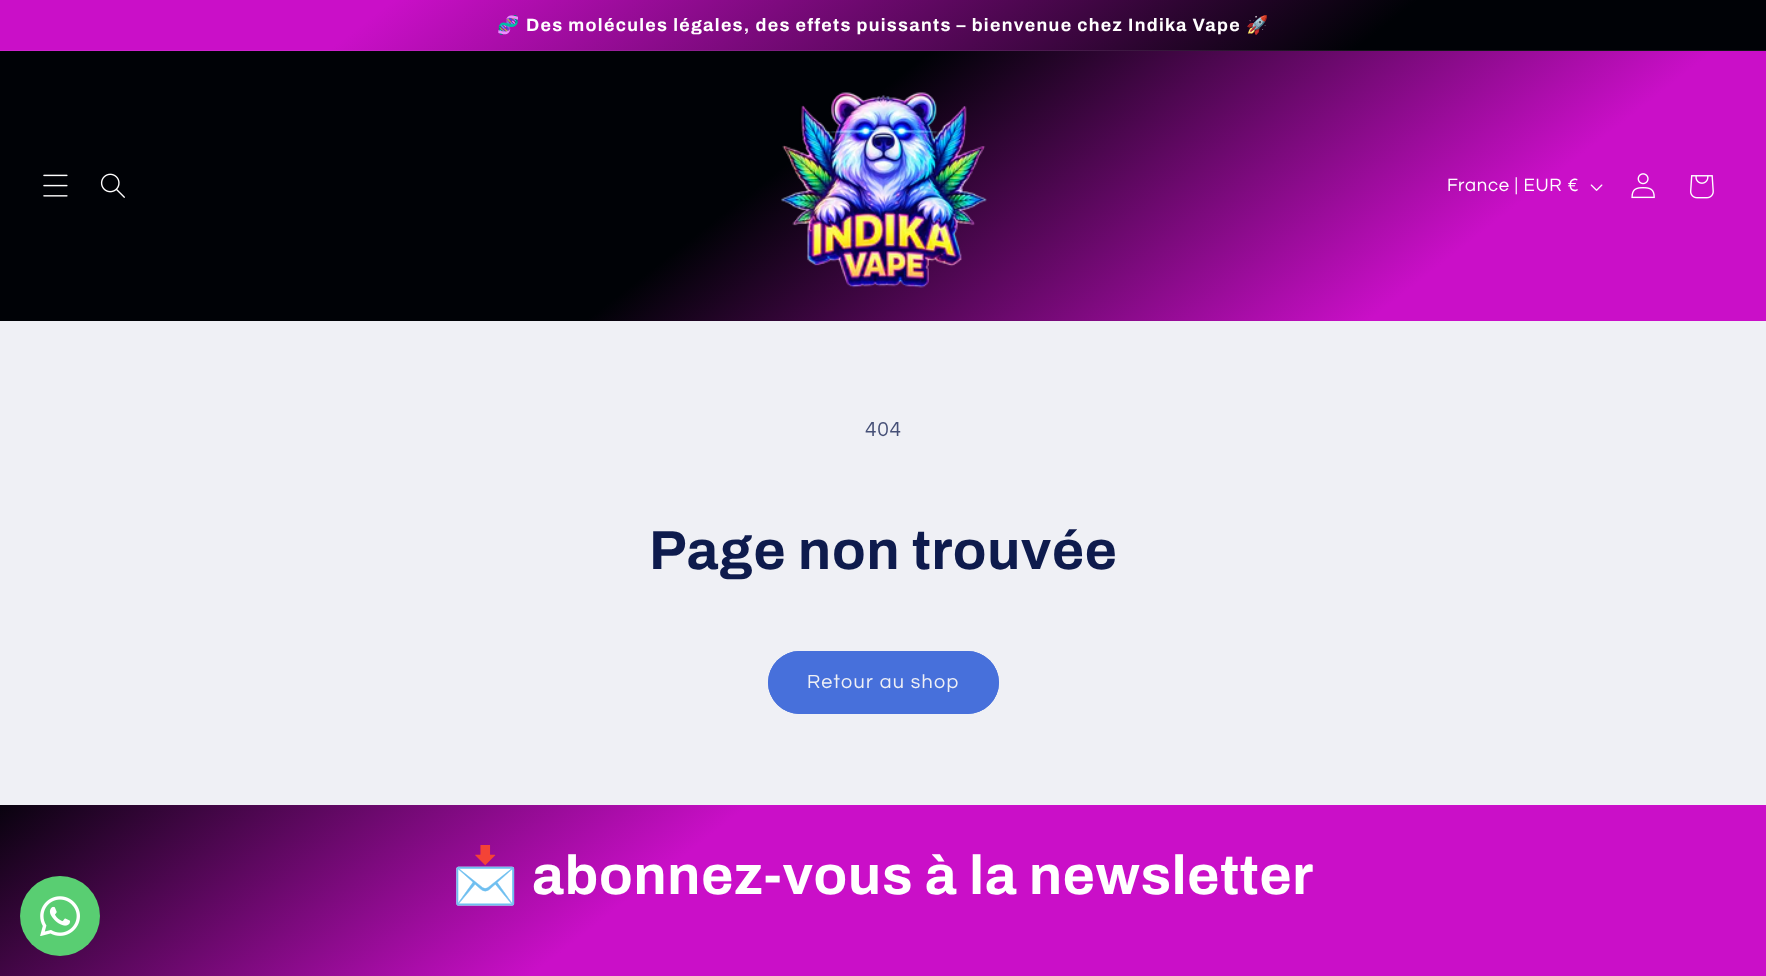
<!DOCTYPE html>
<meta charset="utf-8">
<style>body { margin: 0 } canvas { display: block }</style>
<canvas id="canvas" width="1766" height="976"></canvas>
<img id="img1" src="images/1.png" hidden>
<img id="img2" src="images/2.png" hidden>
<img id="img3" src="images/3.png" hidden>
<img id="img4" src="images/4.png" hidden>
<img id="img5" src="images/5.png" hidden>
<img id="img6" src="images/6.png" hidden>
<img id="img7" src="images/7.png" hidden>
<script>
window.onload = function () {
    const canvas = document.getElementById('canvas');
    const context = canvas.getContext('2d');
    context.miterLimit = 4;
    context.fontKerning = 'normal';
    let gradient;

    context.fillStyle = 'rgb(239, 240, 245)';
    context.fillRect(0, 0, 1766, 976);
    gradient = context.createLinearGradient(312, -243, 1455, 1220);
    gradient.addColorStop(0.13, 'rgb(202, 15, 200)');
    gradient.addColorStop(0.47, 'rgb(0, 2, 6)');
    context.fillStyle = gradient;
    context.fillRect(0, 0, 1766, 50);
    gradient = context.createLinearGradient(312, -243, 1455, 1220);
    gradient.addColorStop(0.13, 'rgb(206, 34, 204)');
    gradient.addColorStop(0.47, 'rgb(20, 22, 26)');
    context.fillStyle = gradient;
    context.fillRect(0, 50, 1766, 1);
    gradient = context.createLinearGradient(312, -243, 1455, 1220);
    gradient.addColorStop(0.33, 'rgb(0, 2, 6)');
    gradient.addColorStop(0.59, 'rgb(202, 15, 200)');
    context.fillStyle = gradient;
    context.fillRect(0, 51, 1766, 270);
    context.drawImage(document.getElementById('img1'), 43, 174, 25, 23);
    context.drawImage(document.getElementById('img2'), 100, 173, 25, 25);
    context.drawImage(document.getElementById('img3'), 781, 92, 206, 196);
    context.drawImage(document.getElementById('img4'), 1590, 184, 13, 7);
    context.drawImage(document.getElementById('img5'), 1631, 173, 24, 26);
    context.drawImage(document.getElementById('img6'), 1690, 175, 24, 24);
    context.fillStyle = 'rgb(71, 112, 219)';
    context.beginPath();
    context.roundRect(768, 651, 231, 63, 31.5);
    context.fill();
    context.beginPath();
    context.roundRect(768.5, 651.5, 230, 62, 31);
    context.strokeStyle = 'rgb(71, 112, 219)';
    context.stroke();
    gradient = context.createLinearGradient(312, -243, 1455, 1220);
    gradient.addColorStop(0.33, 'rgb(0, 2, 6)');
    gradient.addColorStop(0.59, 'rgb(202, 15, 200)');
    context.fillStyle = gradient;
    context.fillRect(0, 805, 1766, 171);
    context.fillStyle = 'rgb(89, 206, 114)';
    context.beginPath();
    context.arc(60, 916, 40, 0, 2 * Math.PI);
    context.fill();
    context.drawImage(document.getElementById('img7'), 40, 896, 40, 40);
    context.letterSpacing = '1.3px';
    context.font = 'bold 17.9px Noto Color Emoji';
    context.fillStyle = 'rgb(255, 255, 255)';
    context.fillText('🧬', 497, 31);
    context.font = 'bold 17.9px Archivo';
    context.fillText('Des molécules légales, des effets puissants – bienvenue chez Indika Vape', 526, 31);
    context.font = 'bold 17.9px Noto Color Emoji';
    context.fillText('🚀', 1246, 31);
    context.letterSpacing = '0.75px';
    context.font = '18.5px Questrial';
    context.fillText('France | EUR €', 1447, 191);
    context.font = '21px Questrial';
    context.fillStyle = 'rgb(70, 80, 119)';
    context.fillText('404', 865, 436);
    context.letterSpacing = '0.8px';
    context.font = 'bold 55px Archivo';
    context.fillStyle = 'rgb(14, 27, 77)';
    context.fillText('Page non trouvée', 649, 569);
    context.letterSpacing = '1.3px';
    context.font = '19.75px Questrial';
    context.fillStyle = 'rgb(239, 240, 245)';
    context.fillText('Retour au shop', 807, 688);
    context.letterSpacing = '0.8px';
    context.font = 'bold 55px Noto Color Emoji';
    context.fillStyle = 'rgb(255, 255, 255)';
    context.fillText('📩', 451, 894);
    context.font = 'bold 55px Archivo';
    context.fillText('abonnez-vous à la newsletter', 532, 894);
};
</script>
